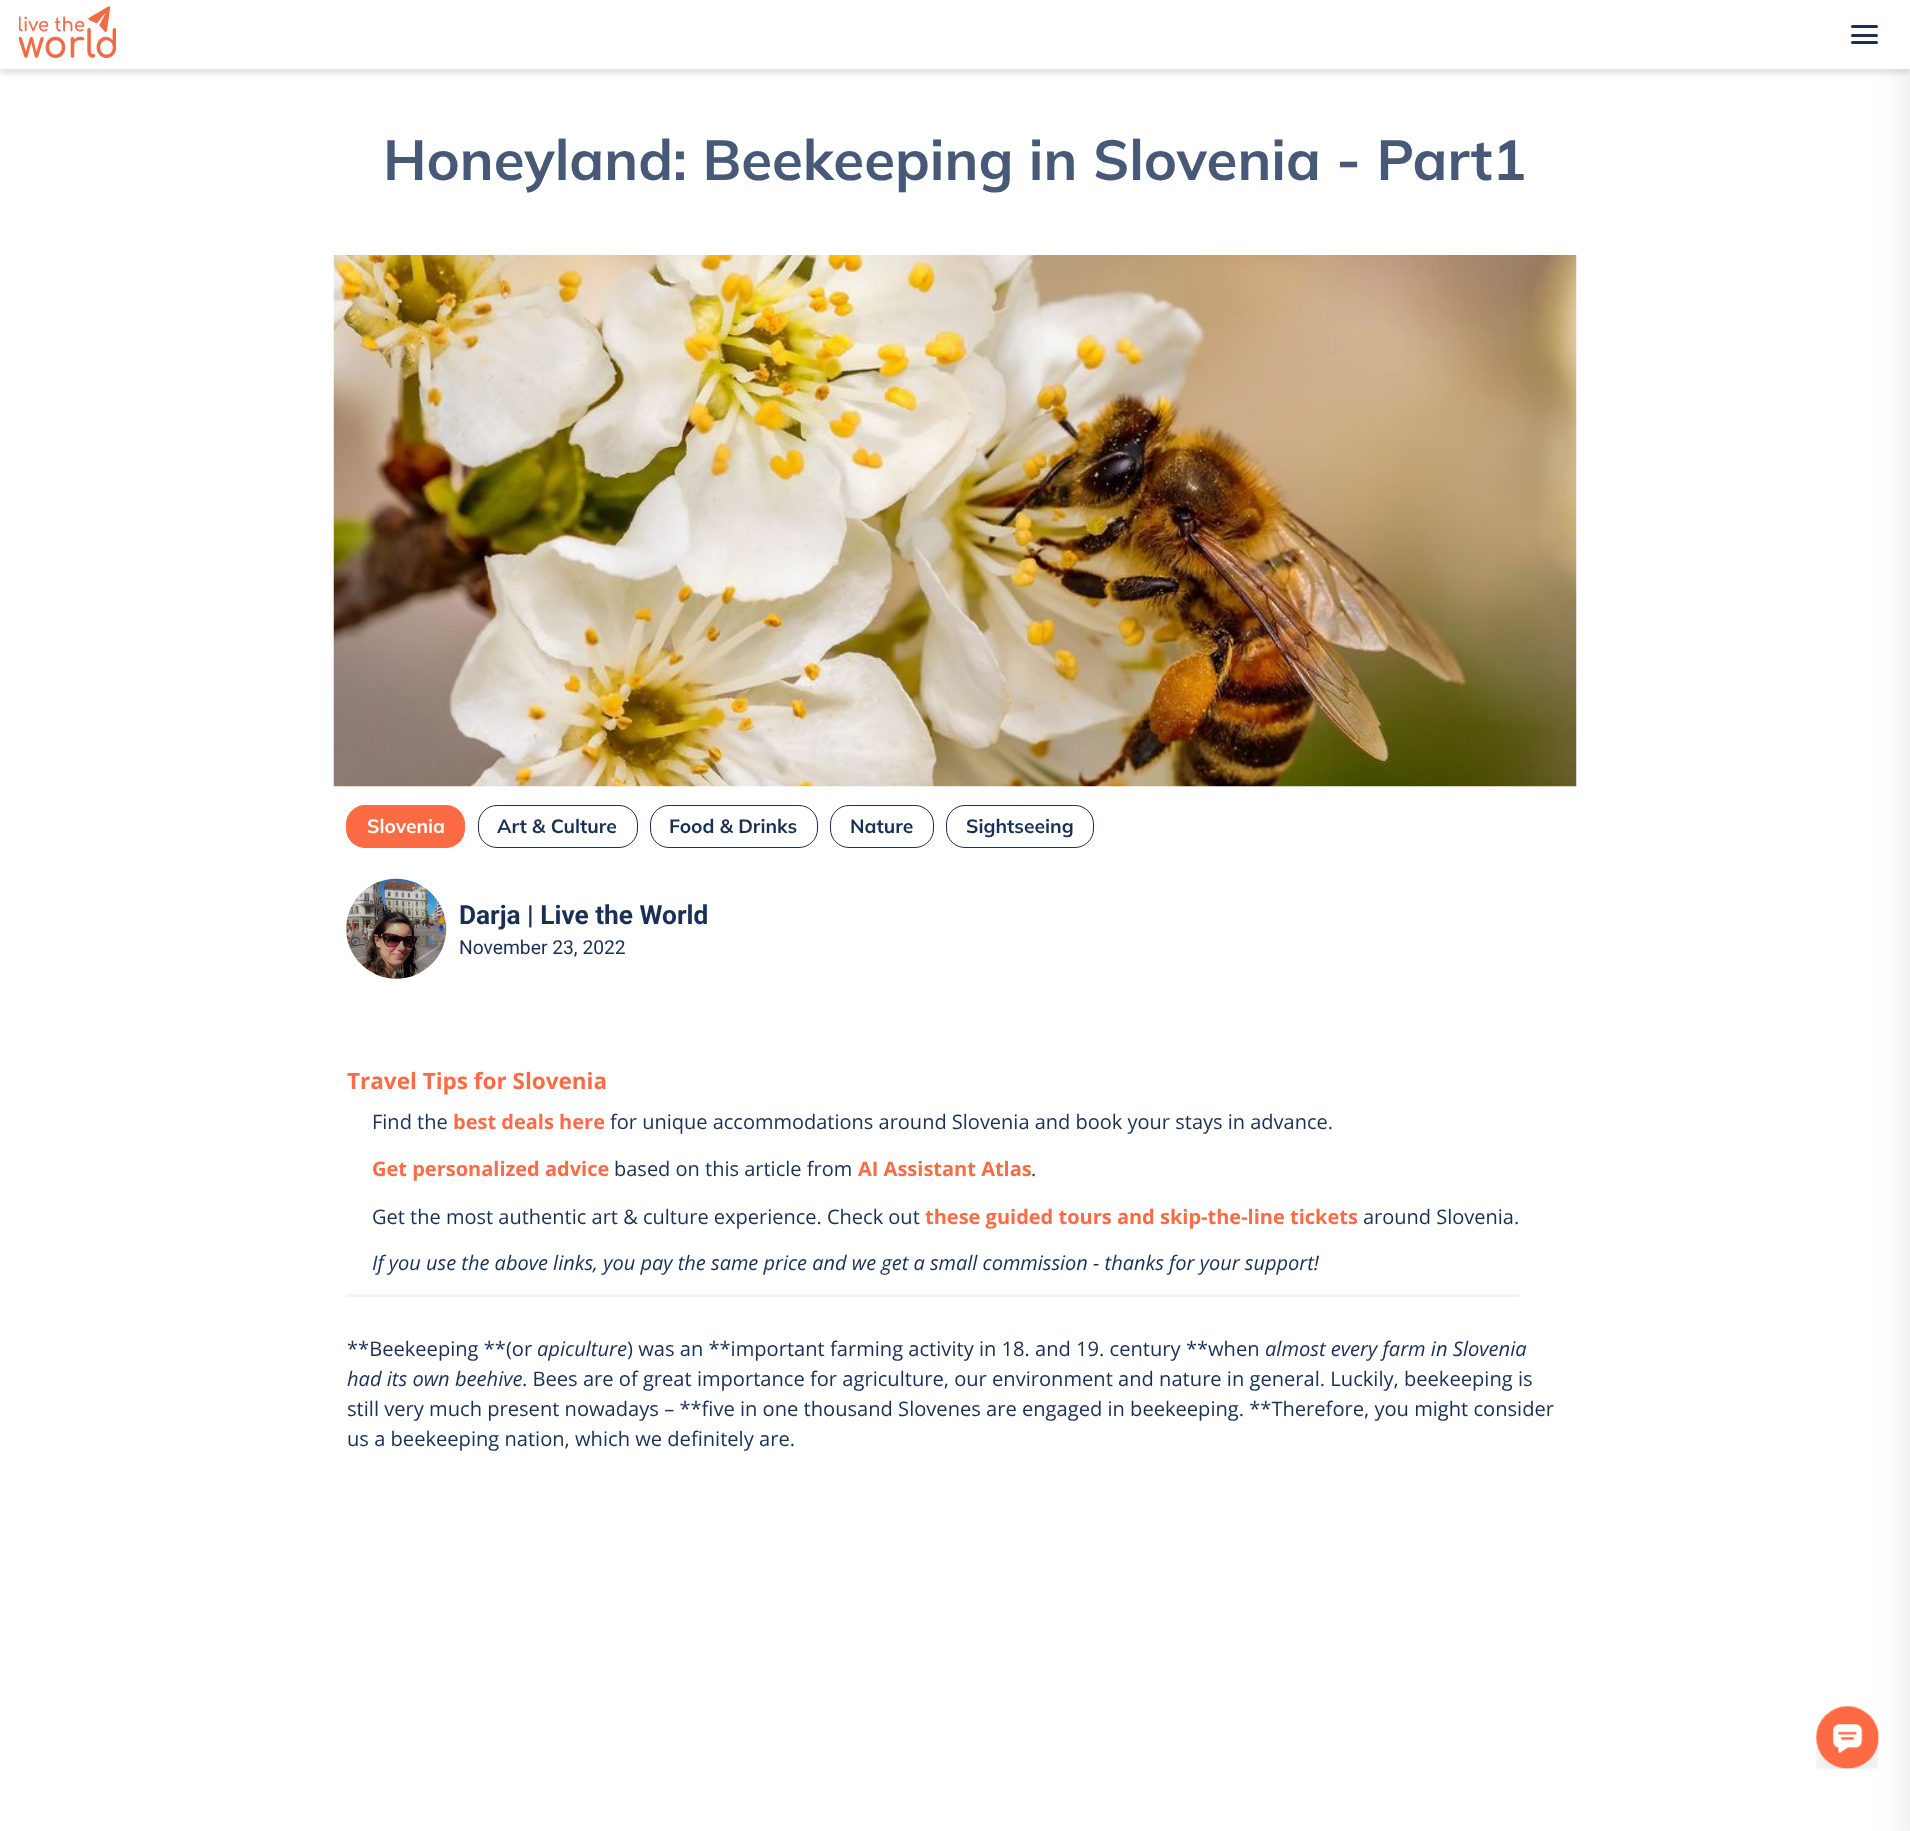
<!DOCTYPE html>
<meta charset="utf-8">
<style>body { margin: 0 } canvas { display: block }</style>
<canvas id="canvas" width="1910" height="1831"></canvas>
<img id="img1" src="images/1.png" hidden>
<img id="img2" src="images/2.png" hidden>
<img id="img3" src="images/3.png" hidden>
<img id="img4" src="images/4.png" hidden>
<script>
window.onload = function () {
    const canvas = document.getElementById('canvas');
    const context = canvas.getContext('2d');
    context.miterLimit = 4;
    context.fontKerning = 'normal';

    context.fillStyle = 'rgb(255, 255, 255)';
    context.fillRect(0, 0, 1910, 1831);
    context.fillStyle = 'rgba(0, 0, 0, 0.1)';
    context.filter = 'blur(2.5px)';
    context.beginPath();
    context.rect(0, 5, 1910, 69);
    context.fill();
    context.filter = 'none';
    context.filter = 'blur(19px)';
    context.beginPath();
    context.rect(1910, 25, 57, 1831);
    context.fill();
    context.filter = 'none';
    context.fillStyle = 'rgb(255, 255, 255)';
    context.fillRect(0, 1, 1910, 68);
    context.drawImage(document.getElementById('img1'), 19, 6, 97, 52);
    context.fillStyle = 'rgb(25, 47, 84)';
    context.beginPath();
    context.roundRect(1851, 25, 27, 3, 1.5);
    context.fill();
    context.beginPath();
    context.roundRect(1851, 34, 27, 3, 1.5);
    context.fill();
    context.beginPath();
    context.roundRect(1851, 41, 27, 3, 1.5);
    context.fill();
    context.drawImage(document.getElementById('img2'), 333, 255, 1244, 532);
    context.fillStyle = 'rgb(252, 107, 67)';
    context.beginPath();
    context.roundRect(346.5, 805.5, 118, 42, 18.5);
    context.fill();
    context.strokeStyle = 'rgb(252, 107, 67)';
    context.stroke();
    context.beginPath();
    context.roundRect(478.5, 805.5, 159, 42, 18.5);
    context.strokeStyle = 'rgb(25, 47, 84)';
    context.stroke();
    context.beginPath();
    context.roundRect(650.5, 805.5, 167, 42, 18.5);
    context.stroke();
    context.beginPath();
    context.roundRect(830.5, 805.5, 103, 42, 18.5);
    context.stroke();
    context.beginPath();
    context.roundRect(946.5, 805.5, 147, 42, 18.5);
    context.stroke();
    context.drawImage(document.getElementById('img3'), 346, 878, 101, 101);
    context.fillStyle = 'rgb(243, 244, 247)';
    context.fillRect(346, 1294, 1173, 3);
    context.drawImage(document.getElementById('img4'), 1816, 1706, 64, 64);
    context.font = 'bold 56.25px Mulish';
    context.fillStyle = 'rgb(71, 89, 118)';
    context.fillText('Honeyland: Beekeeping in Slovenia - Part1', 383, 180);
    context.font = 'bold 19.25px Mulish';
    context.fillStyle = 'rgb(255, 255, 255)';
    context.fillText('Slovenia', 367, 833);
    context.fillStyle = 'rgb(25, 47, 84)';
    context.fillText('Art & Culture', 497, 833);
    context.fillText('Food & Drinks', 669, 833);
    context.fillText('Nature', 850, 833);
    context.fillText('Sightseeing', 966, 833);
    context.font = 'bold 26.25px Roboto';
    context.fillText('Darja | Live the World', 459, 924);
    context.font = '19.25px Roboto';
    context.fillText('November 23, 2022', 459, 954);
    context.font = 'bold 22.5px Open Sans';
    context.fillStyle = 'rgb(252, 107, 67)';
    context.fillText('Travel Tips for Slovenia', 347, 1089);
    context.font = '20px Open Sans';
    context.fillStyle = 'rgb(25, 47, 84)';
    context.fillText('Find the', 372, 1129);
    context.font = 'bold 20px Open Sans';
    context.fillStyle = 'rgb(252, 107, 67)';
    context.fillText('best deals here', 453, 1129);
    context.font = '20px Open Sans';
    context.fillStyle = 'rgb(25, 47, 84)';
    context.fillText('for unique accommodations around Slovenia and book your stays in advance.', 610, 1129);
    context.font = 'bold 20px Open Sans';
    context.fillStyle = 'rgb(252, 107, 67)';
    context.fillText('Get personalized advice', 372, 1176);
    context.font = '20px Open Sans';
    context.fillStyle = 'rgb(25, 47, 84)';
    context.fillText('based on this article from', 614, 1176);
    context.font = 'bold 20px Open Sans';
    context.fillStyle = 'rgb(252, 107, 67)';
    context.fillText('AI Assistant Atlas', 858, 1176);
    context.font = '20px Open Sans';
    context.fillStyle = 'rgb(25, 47, 84)';
    context.fillText('.', 1031, 1176);
    context.fillText('Get the most authentic art & culture experience. Check out', 372, 1224);
    context.font = 'bold 20px Open Sans';
    context.fillStyle = 'rgb(252, 107, 67)';
    context.fillText('these guided tours and skip-the-line tickets', 925, 1224);
    context.font = '20px Open Sans';
    context.fillStyle = 'rgb(25, 47, 84)';
    context.fillText('around Slovenia.', 1363, 1224);
    context.font = 'italic 20px Open Sans';
    context.fillText('If you use the above links, you pay the same price and we get a small commission - thanks for your support!', 372, 1270);
    context.font = '20.12px Open Sans';
    context.fillText('**Beekeeping **(or', 347, 1356);
    context.font = 'italic 20.12px Open Sans';
    context.fillText('apiculture', 537, 1356);
    context.font = '20.12px Open Sans';
    context.fillText(') was an **important farming activity in 18. and 19. century **when', 627, 1356);
    context.font = 'italic 20.12px Open Sans';
    context.fillText('almost every farm in Slovenia', 1265, 1356);
    context.fillText('had its own beehive', 347, 1386);
    context.font = '20.12px Open Sans';
    context.fillText('. Bees are of great importance for agriculture, our environment and nature in general. Luckily, beekeeping is', 522, 1386);
    context.fillText('still very much present nowadays – **five in one thousand Slovenes are engaged in beekeeping. **Therefore, you might consider', 347, 1416);
    context.fillText('us a beekeeping nation, which we definitely are.', 347, 1446);
};
</script>
